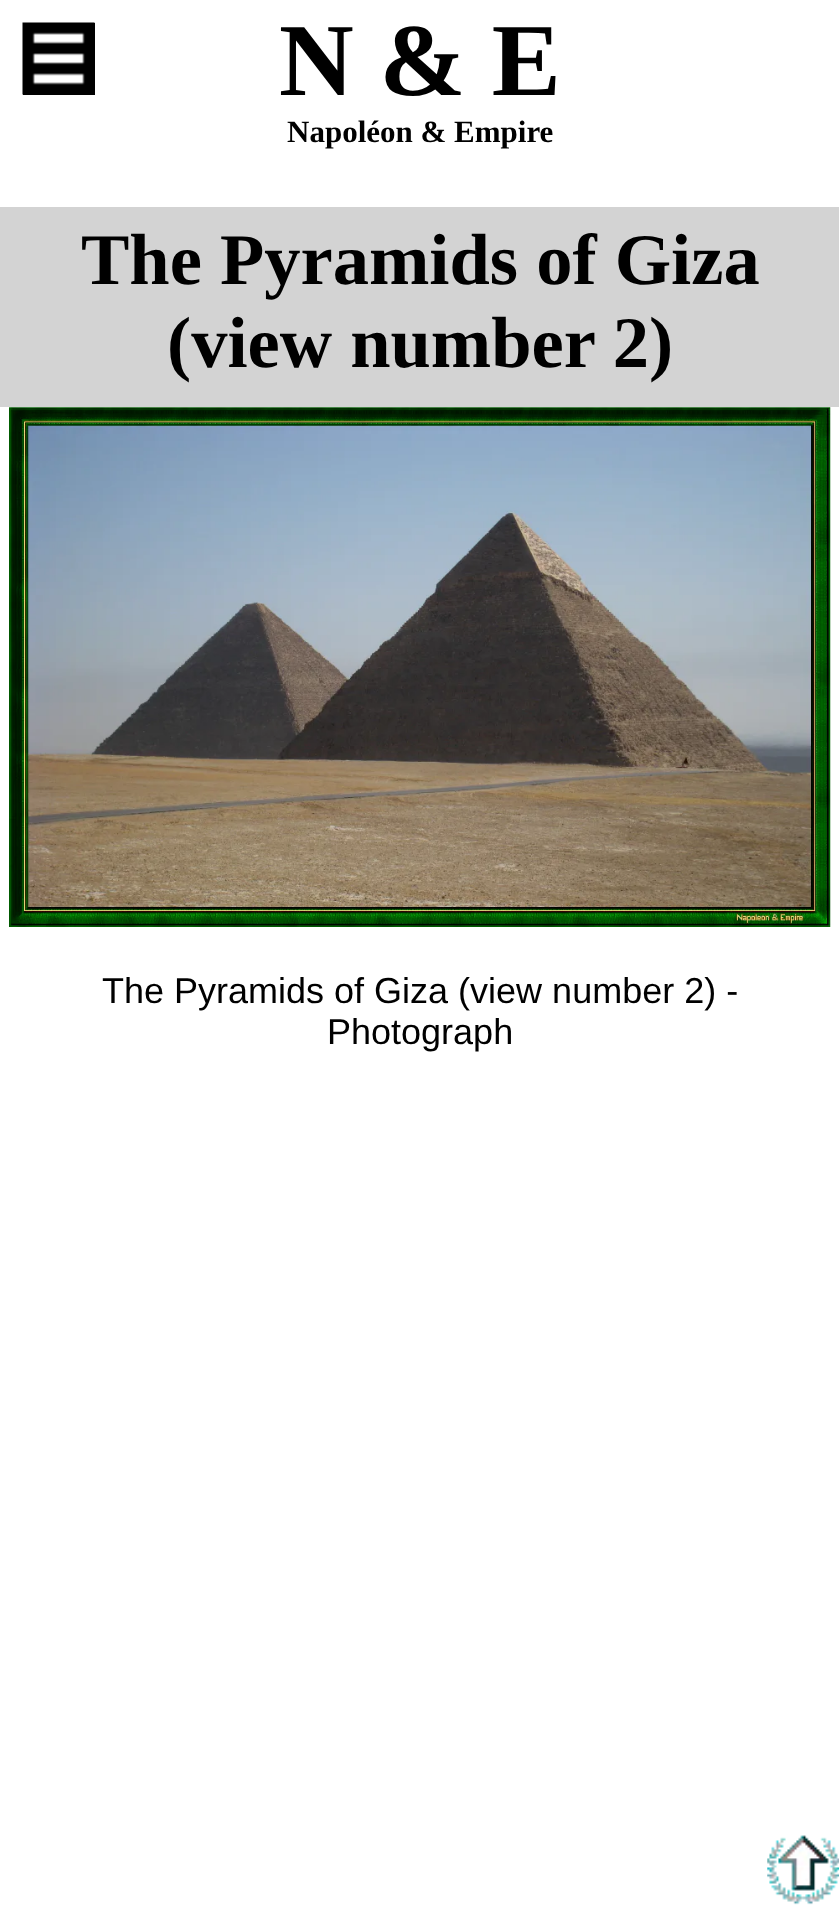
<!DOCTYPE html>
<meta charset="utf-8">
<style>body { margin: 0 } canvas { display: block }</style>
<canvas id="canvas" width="839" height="1913"></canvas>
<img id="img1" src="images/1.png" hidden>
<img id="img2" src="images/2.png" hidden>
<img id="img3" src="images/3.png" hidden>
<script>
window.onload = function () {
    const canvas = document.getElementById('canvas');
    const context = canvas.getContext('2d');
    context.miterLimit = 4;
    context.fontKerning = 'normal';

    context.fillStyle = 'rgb(255, 255, 255)';
    context.fillRect(0, 0, 839, 1913);
    context.fillStyle = 'rgb(0, 0, 0)';
    context.fillRect(23, 23, 72, 72);
    context.drawImage(document.getElementById('img1'), 22, 22, 73, 73);
    context.fillStyle = 'rgb(211, 211, 211)';
    context.fillRect(0, 207, 839, 200);
    context.drawImage(document.getElementById('img2'), 9, 407, 822, 520);
    context.drawImage(document.getElementById('img3'), 767, 1835, 72, 70);
    context.font = 'bold 103.5px Liberation Serif';
    context.fillStyle = 'rgb(0, 0, 0)';
    context.fillText('N & E', 279, 95);
    context.font = 'bold 31px Liberation Serif';
    context.fillText('Napoléon & Empire', 287, 142);
    context.font = 'bold 72.5px Liberation Serif';
    context.fillText('The Pyramids of Giza', 81, 284);
    context.fillText('(view number 2)', 167, 367);
    context.font = '36px Liberation Sans';
    context.fillText('The Pyramids of Giza (view number 2) -', 102, 1003);
    context.fillText('Photograph', 327, 1044);
};
</script>
